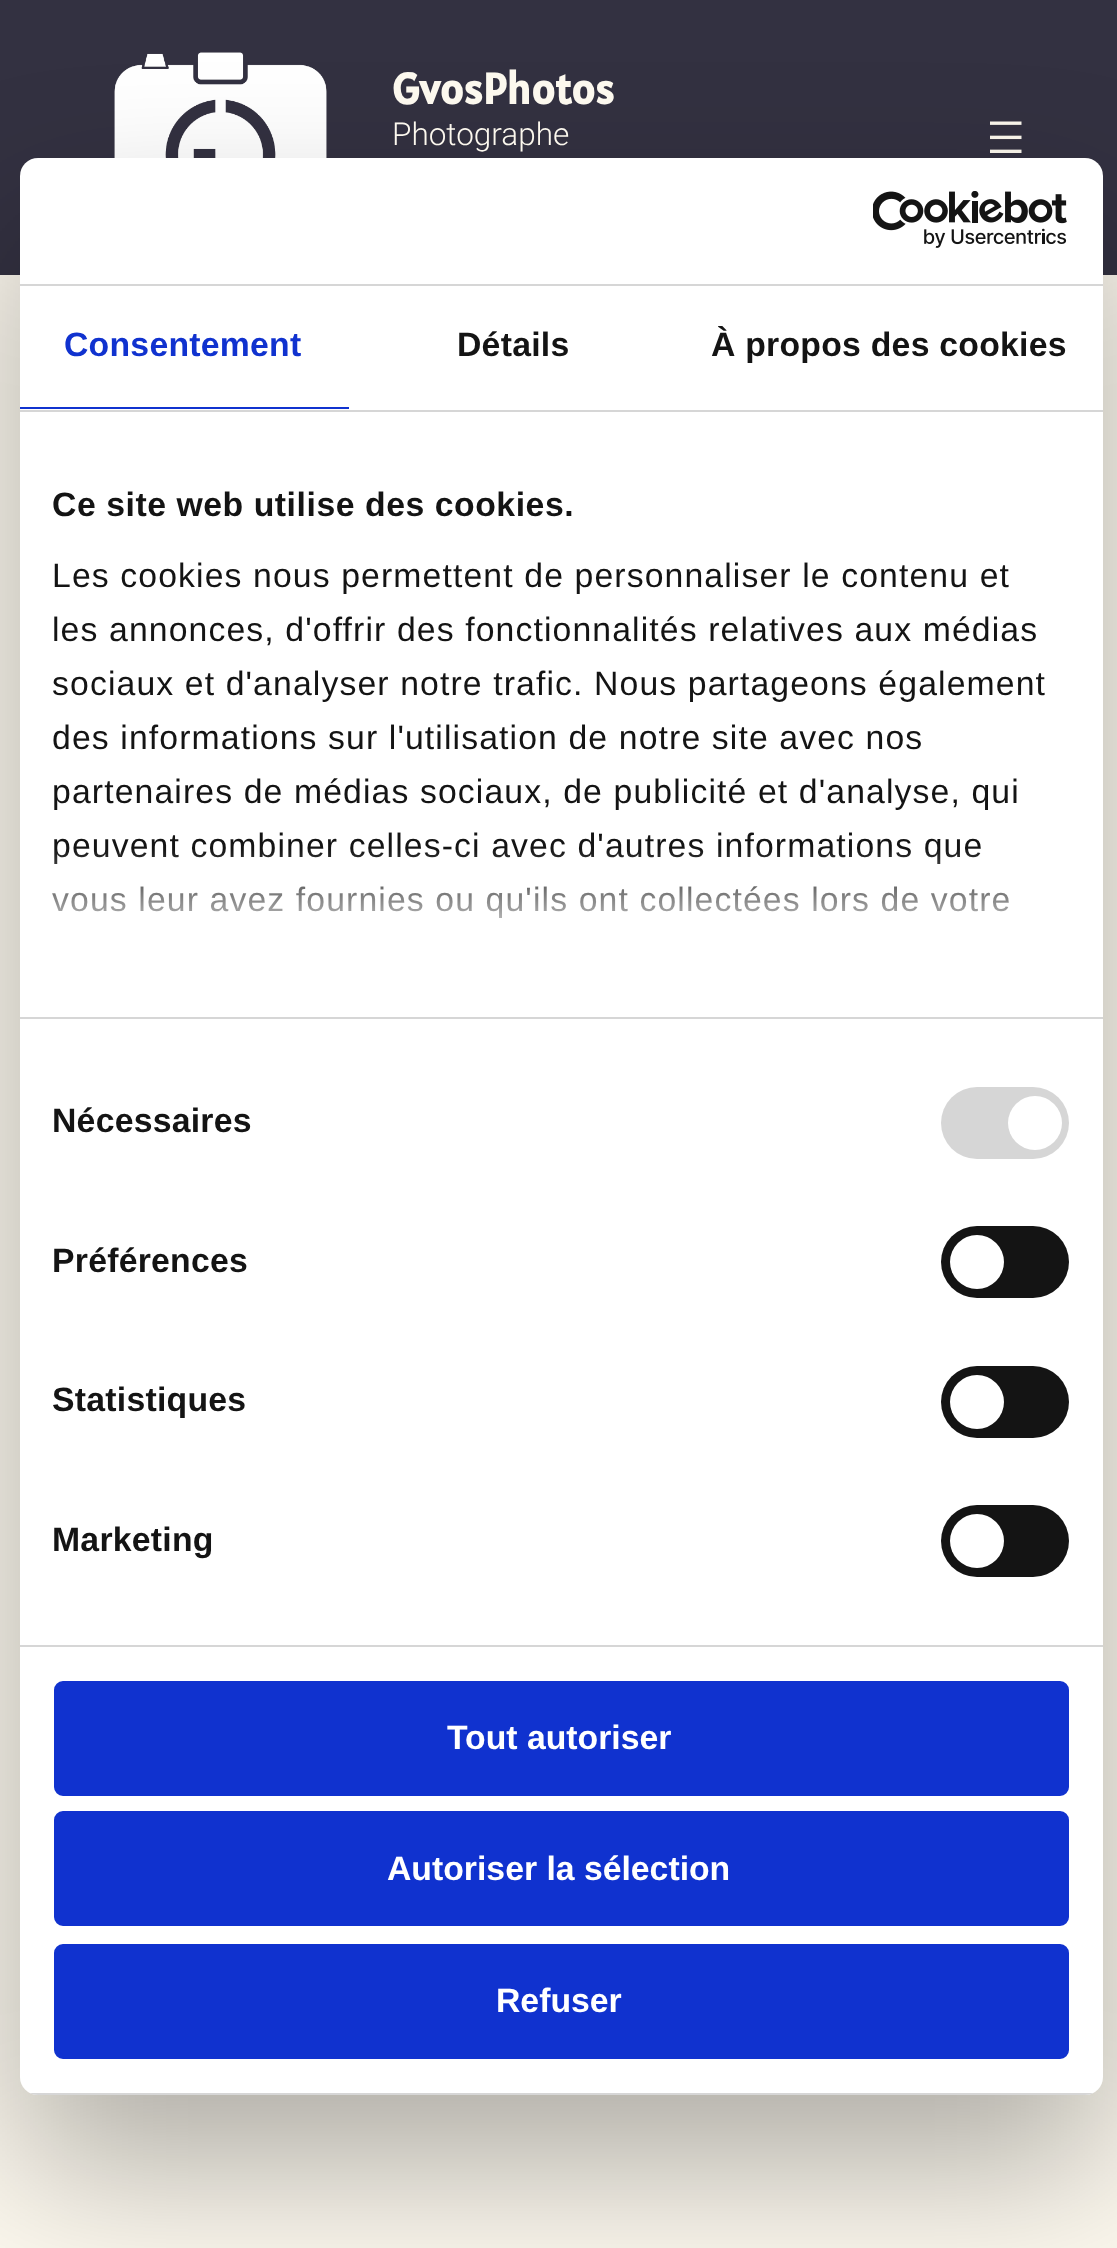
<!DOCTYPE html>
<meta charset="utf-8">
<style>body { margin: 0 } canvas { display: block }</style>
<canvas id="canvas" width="1117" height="2248"></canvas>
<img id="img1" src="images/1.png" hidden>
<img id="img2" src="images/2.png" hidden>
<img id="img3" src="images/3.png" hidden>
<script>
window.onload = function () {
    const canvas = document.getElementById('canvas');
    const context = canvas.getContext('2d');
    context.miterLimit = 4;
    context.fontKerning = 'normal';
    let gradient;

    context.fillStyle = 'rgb(252, 248, 238)';
    context.fillRect(0, 0, 1117, 2248);
    context.fillStyle = 'rgb(51, 49, 65)';
    context.fillRect(0, 0, 1117, 275);
    context.drawImage(document.getElementById('img1'), 114, 52, 213, 106);
    context.drawImage(document.getElementById('img2'), 990, 121, 32, 32);
    context.fillStyle = 'rgba(0, 0, 0, 0.3)';
    context.filter = 'blur(76.5px)';
    context.beginPath();
    context.roundRect(20, 230, 1083, 1937, 18);
    context.fill();
    context.filter = 'none';
    context.fillStyle = 'rgb(255, 255, 255)';
    context.beginPath();
    context.roundRect(20, 158, 1083, 1937, 18);
    context.fill();
    context.fillStyle = 'rgb(214, 214, 214)';
    context.fillRect(20, 284, 1083, 2);
    context.drawImage(document.getElementById('img3'), 873, 191, 194, 57);
    context.fillRect(20, 410, 1083, 2);
    context.fillStyle = 'rgb(16, 50, 207)';
    context.fillRect(20, 407, 329, 2);
    context.fillStyle = 'rgb(214, 214, 214)';
    context.fillRect(20, 1017, 1083, 2);
    context.fillRect(20, 1645, 1083, 2);
    context.beginPath();
    context.roundRect(941, 1087, 128, 72, 36);
    context.fill();
    context.fillStyle = 'rgb(255, 255, 255)';
    context.beginPath();
    context.arc(1035, 1123, 27, 0, 2 * Math.PI);
    context.fill();
    context.fillStyle = 'rgb(20, 20, 20)';
    context.beginPath();
    context.roundRect(941, 1226, 128, 72, 36);
    context.fill();
    context.fillStyle = 'rgb(255, 255, 255)';
    context.beginPath();
    context.arc(977, 1262, 27, 0, 2 * Math.PI);
    context.fill();
    context.fillStyle = 'rgb(20, 20, 20)';
    context.beginPath();
    context.roundRect(941, 1366, 128, 72, 36);
    context.fill();
    context.fillStyle = 'rgb(255, 255, 255)';
    context.beginPath();
    context.arc(977, 1402, 27, 0, 2 * Math.PI);
    context.fill();
    context.fillStyle = 'rgb(20, 20, 20)';
    context.beginPath();
    context.roundRect(941, 1505, 128, 72, 36);
    context.fill();
    context.fillStyle = 'rgb(255, 255, 255)';
    context.beginPath();
    context.arc(977, 1541, 27, 0, 2 * Math.PI);
    context.fill();
    context.save();
    context.beginPath();
    context.roundRect(20, 158, 1083, 1937, 18);
    context.clip();
    context.fillStyle = 'rgb(214, 214, 214)';
    context.fillRect(30, 2093, 1063, 2);
    context.restore();
    context.fillStyle = 'rgb(16, 50, 207)';
    context.beginPath();
    context.roundRect(56.5, 1683.5, 1010, 110, 6.5);
    context.fill();
    context.strokeStyle = 'rgb(16, 50, 207)';
    context.lineWidth = 5;
    context.stroke();
    context.beginPath();
    context.roundRect(56.5, 1813.5, 1010, 110, 6.5);
    context.fill();
    context.stroke();
    context.beginPath();
    context.roundRect(56.5, 1946.5, 1010, 110, 6.5);
    context.fill();
    context.stroke();
    context.font = 'bold 43.5px Alatsi';
    context.fillStyle = 'rgb(252, 248, 238)';
    context.fillText('GvosPhotos', 392, 104);
    context.font = '300 31.5px Roboto';
    context.fillText('Photographe', 392, 145);
    context.letterSpacing = '0.25px';
    context.font = 'bold 33.75px Liberation Sans';
    context.fillStyle = 'rgb(16, 50, 207)';
    context.fillText('Consentement', 64, 356);
    context.fillStyle = 'rgb(20, 20, 20)';
    context.fillText('Détails', 457, 356);
    context.fillText('À propos des cookies', 711, 356);
    context.letterSpacing = '0.55px';
    context.fillText('Ce site web utilise des cookies.', 52, 516);
    context.letterSpacing = '1.12px';
    context.font = '33.75px Liberation Sans';
    context.fillText('Les cookies nous permettent de personnaliser le contenu et', 52, 587);
    context.fillText('les annonces, d\'offrir des fonctionnalités relatives aux médias', 52, 641);
    context.fillText('sociaux et d\'analyser notre trafic. Nous partageons également', 52, 695);
    context.fillText('des informations sur l\'utilisation de notre site avec nos', 52, 749);
    context.fillText('partenaires de médias sociaux, de publicité et d\'analyse, qui', 52, 803);
    context.fillText('peuvent combiner celles-ci avec d\'autres informations que', 52, 857);
    context.fillText('vous leur avez fournies ou qu\'ils ont collectées lors de votre', 52, 911);
    gradient = context.createLinearGradient(546, 1016, 546, 848);
    gradient.addColorStop(0, 'rgb(255, 255, 255)');
    gradient.addColorStop(0.5, 'rgba(255, 255, 255, 0.8)');
    gradient.addColorStop(1, 'rgba(255, 255, 255, 0)');
    context.fillStyle = gradient;
    context.fillRect(52, 850, 957, 68);
    context.letterSpacing = '0.25px';
    context.font = 'bold 33.75px Liberation Sans';
    context.fillStyle = 'rgb(20, 20, 20)';
    context.fillText('Nécessaires', 52, 1132);
    context.fillText('Préférences', 52, 1272);
    context.fillText('Statistiques', 52, 1411);
    context.fillText('Marketing', 52, 1551);
    context.letterSpacing = '0px';
    context.fillStyle = 'rgb(255, 255, 255)';
    context.fillText('Tout autoriser', 447, 1749);
    context.fillText('Autoriser la sélection', 387, 1880);
    context.fillText('Refuser', 496, 2012);
};
</script>
